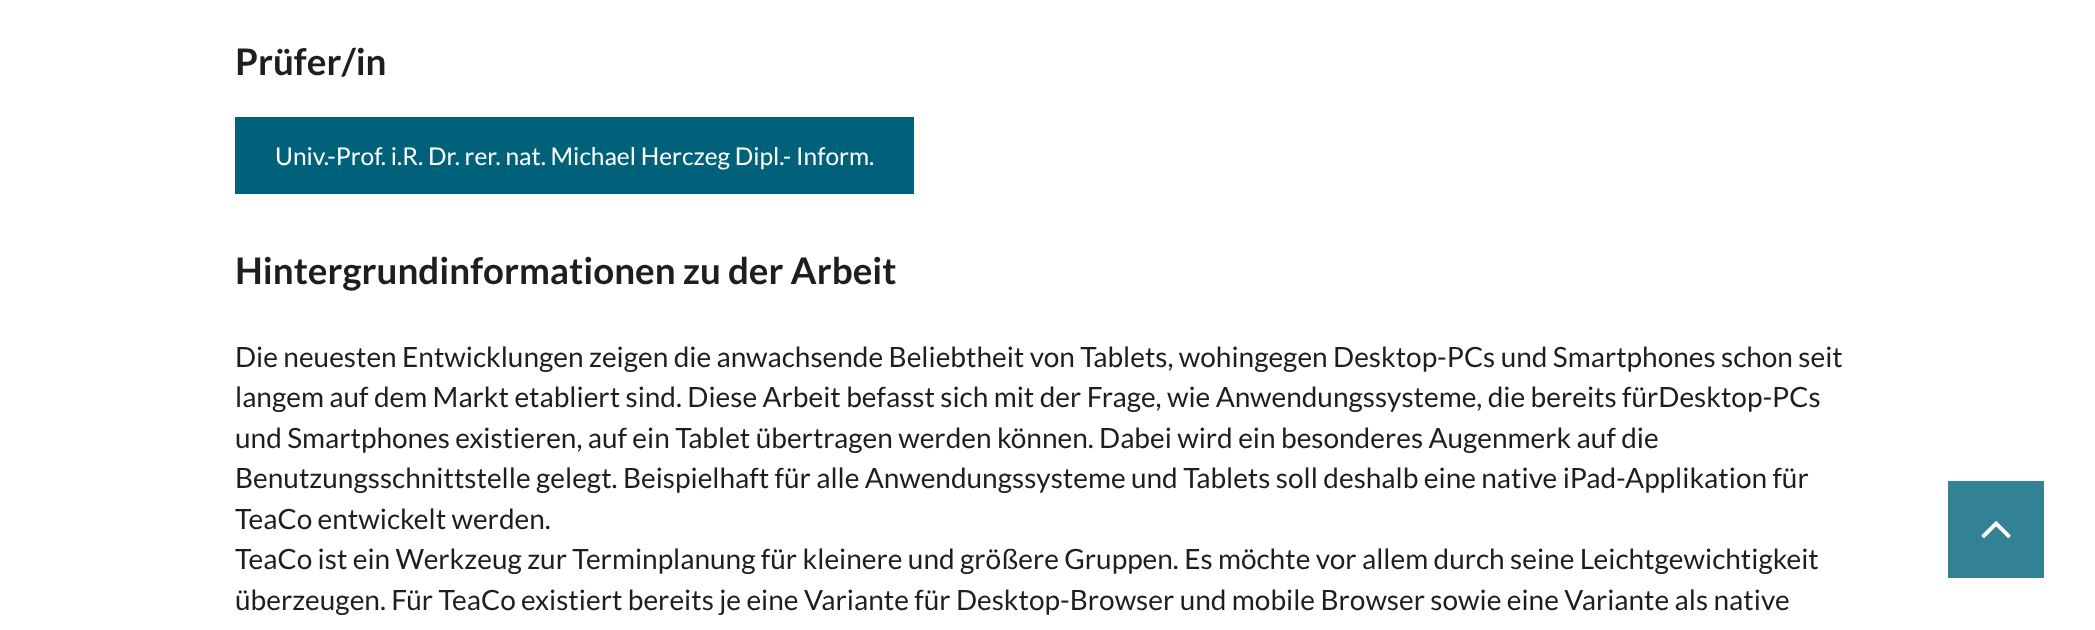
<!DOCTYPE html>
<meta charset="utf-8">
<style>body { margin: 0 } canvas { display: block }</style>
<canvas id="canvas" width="2095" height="630"></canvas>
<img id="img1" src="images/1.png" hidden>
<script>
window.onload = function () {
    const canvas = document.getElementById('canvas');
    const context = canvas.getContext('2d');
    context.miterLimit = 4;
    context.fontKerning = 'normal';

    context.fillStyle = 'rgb(255, 255, 255)';
    context.fillRect(0, 0, 2095, 630);
    context.fillStyle = 'rgb(0, 97, 122)';
    context.fillRect(235, 117, 679, 77);
    context.fillStyle = 'rgb(51, 129, 149)';
    context.fillRect(1948, 481, 96, 97);
    context.drawImage(document.getElementById('img1'), 1981, 521, 30, 18);
    context.font = 'bold 36.75px Lato';
    context.fillStyle = 'rgb(30, 30, 30)';
    context.fillText('Prüfer/in', 235, 75);
    context.font = '24.5px Lato';
    context.fillStyle = 'rgb(255, 255, 255)';
    context.fillText('Univ.-Prof. i.R. Dr. rer. nat. Michael Herczeg Dipl.- Inform.', 275, 165);
    context.font = 'bold 36.75px Lato';
    context.fillStyle = 'rgb(30, 30, 30)';
    context.fillText('Hintergrundinformationen zu der Arbeit', 235, 284);
    context.font = '28px Lato';
    context.fillText('Die neuesten Entwicklungen zeigen die anwachsende Beliebtheit von Tablets, wohingegen Desktop-PCs und Smartphones schon seit', 235, 367);
    context.fillText('langem auf dem Markt etabliert sind. Diese Arbeit befasst sich mit der Frage, wie Anwendungssysteme, die bereits fürDesktop-PCs', 235, 407);
    context.fillText('und Smartphones existieren, auf ein Tablet übertragen werden können. Dabei wird ein besonderes Augenmerk auf die', 235, 448);
    context.fillText('Benutzungsschnittstelle gelegt. Beispielhaft für alle Anwendungssysteme und Tablets soll deshalb eine native iPad-Applikation für', 235, 488);
    context.fillText('TeaCo entwickelt werden.', 235, 529);
    context.fillText('TeaCo ist ein Werkzeug zur Terminplanung für kleinere und größere Gruppen. Es möchte vor allem durch seine Leichtgewichtigkeit', 235, 569);
    context.fillText('überzeugen. Für TeaCo existiert bereits je eine Variante für Desktop-Browser und mobile Browser sowie eine Variante als native', 235, 610);
};
</script>
